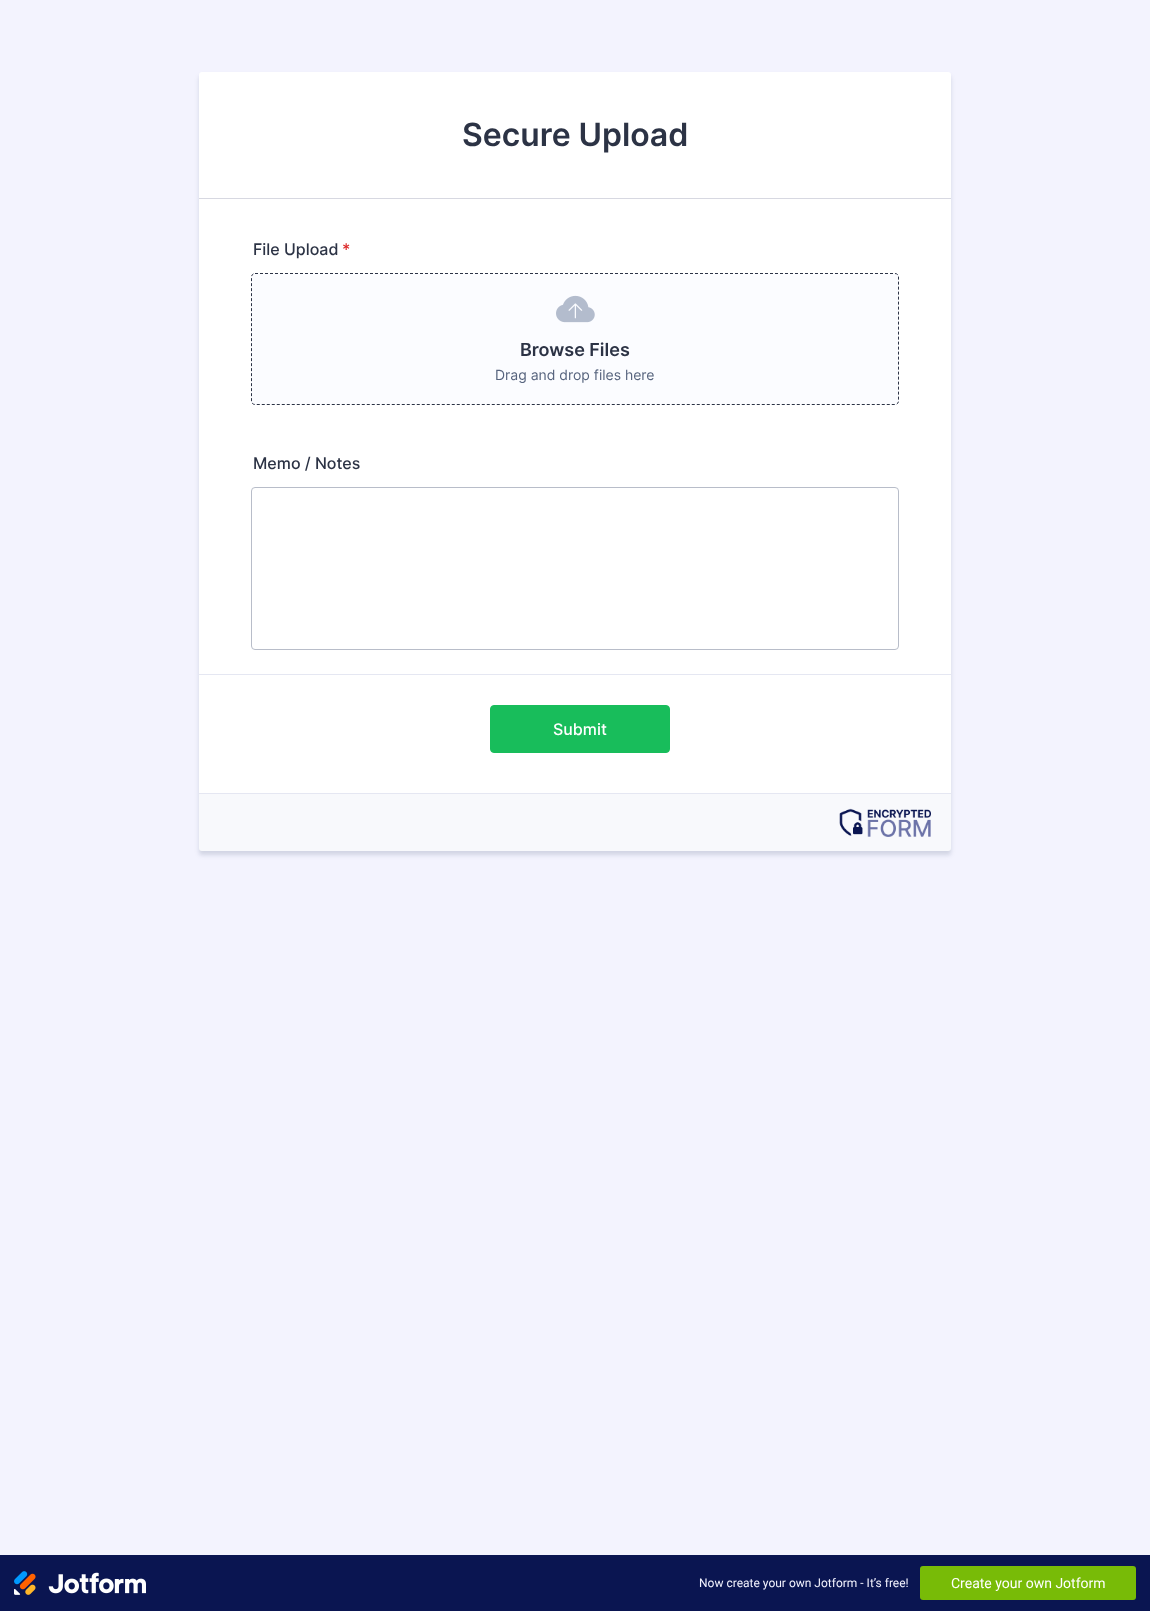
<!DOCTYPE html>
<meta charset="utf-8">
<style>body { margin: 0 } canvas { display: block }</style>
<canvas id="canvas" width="1150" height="1611"></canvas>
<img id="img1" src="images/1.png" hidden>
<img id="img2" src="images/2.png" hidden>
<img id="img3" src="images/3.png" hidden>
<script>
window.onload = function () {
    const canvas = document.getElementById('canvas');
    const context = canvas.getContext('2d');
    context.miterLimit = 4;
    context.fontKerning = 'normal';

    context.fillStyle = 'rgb(243, 243, 254)';
    context.fillRect(0, 0, 1150, 1611);
    context.fillStyle = 'rgba(87, 100, 126, 0.21)';
    context.filter = 'blur(2px)';
    context.beginPath();
    context.roundRect(199, 76, 752, 779, 3);
    context.fill();
    context.filter = 'none';
    context.fillStyle = 'rgb(255, 255, 255)';
    context.beginPath();
    context.roundRect(199, 72, 752, 779, 3);
    context.fill();
    context.fillStyle = 'rgb(215, 216, 225)';
    context.fillRect(199, 198, 752, 1);
    context.fillStyle = 'rgb(251, 252, 255)';
    context.beginPath();
    context.roundRect(251, 273, 648, 132, 4);
    context.fill();
    context.beginPath();
    context.moveTo(255, 273.5);
    context.lineTo(895, 273.5);
    context.bezierCurveTo(897, 273.5, 898.5, 275, 898.5, 277);
    context.lineTo(898.5, 401);
    context.bezierCurveTo(898.5, 403, 897, 404.5, 895, 404.5);
    context.lineTo(255, 404.5);
    context.bezierCurveTo(253, 404.5, 251.5, 403, 251.5, 401);
    context.lineTo(251.5, 277);
    context.bezierCurveTo(251.5, 275, 253, 273.5, 255, 273.5);
    context.closePath();
    context.strokeStyle = 'rgb(44, 51, 69)';
    context.setLineDash([3, 2]);
    context.stroke();
    context.drawImage(document.getElementById('img1'), 556, 295, 39, 28);
    context.beginPath();
    context.roundRect(251.5, 487.5, 647, 162, 3.5);
    context.strokeStyle = 'rgb(184, 189, 201)';
    context.setLineDash([]);
    context.stroke();
    context.fillStyle = 'rgb(229, 231, 242)';
    context.fillRect(199, 674, 752, 1);
    context.fillStyle = 'rgb(24, 189, 91)';
    context.beginPath();
    context.roundRect(490.5, 705.5, 179, 47, 3.5);
    context.fill();
    context.strokeStyle = 'rgb(24, 189, 91)';
    context.stroke();
    context.fillStyle = 'rgba(229, 231, 242, 0.25)';
    context.fillRect(199, 794, 752, 57);
    context.fillStyle = 'rgb(229, 231, 242)';
    context.fillRect(199, 793, 752, 1);
    context.drawImage(document.getElementById('img2'), 839, 808, 92, 29);
    context.fillStyle = 'rgb(10, 21, 81)';
    context.fillRect(0, 1555, 1150, 56);
    context.drawImage(document.getElementById('img3'), 14, 1571, 132, 24);
    context.fillStyle = 'rgb(120, 187, 7)';
    context.beginPath();
    context.roundRect(920, 1566, 216, 34, 3);
    context.fill();
    context.font = '600 32px Inter';
    context.fillStyle = 'rgb(44, 51, 69)';
    context.fillText('Secure Upload', 462, 146);
    context.font = '500 16px Inter';
    context.fillText('File Upload', 253, 255);
    context.fillStyle = 'rgb(220, 38, 38)';
    context.fillText('*', 342, 255);
    context.font = '600 18px Inter';
    context.fillStyle = 'rgb(44, 51, 69)';
    context.fillText('Browse Files', 520, 356);
    context.font = '14px Inter';
    context.fillStyle = 'rgb(87, 100, 126)';
    context.fillText('Drag and drop files here', 495, 380);
    context.font = '500 16px Inter';
    context.fillStyle = 'rgb(44, 51, 69)';
    context.fillText('Memo / Notes', 253, 469);
    context.fillStyle = 'rgb(255, 255, 255)';
    context.fillText('Submit', 553, 735);
    context.font = '12px Roboto';
    context.fillStyle = 'rgb(243, 243, 254)';
    context.fillText('Now create your own Jotform - It’s free!', 699, 1587);
    context.font = '14px Roboto';
    context.fillStyle = 'rgb(255, 255, 255)';
    context.fillText('Create your own Jotform', 951, 1588);
};
</script>
